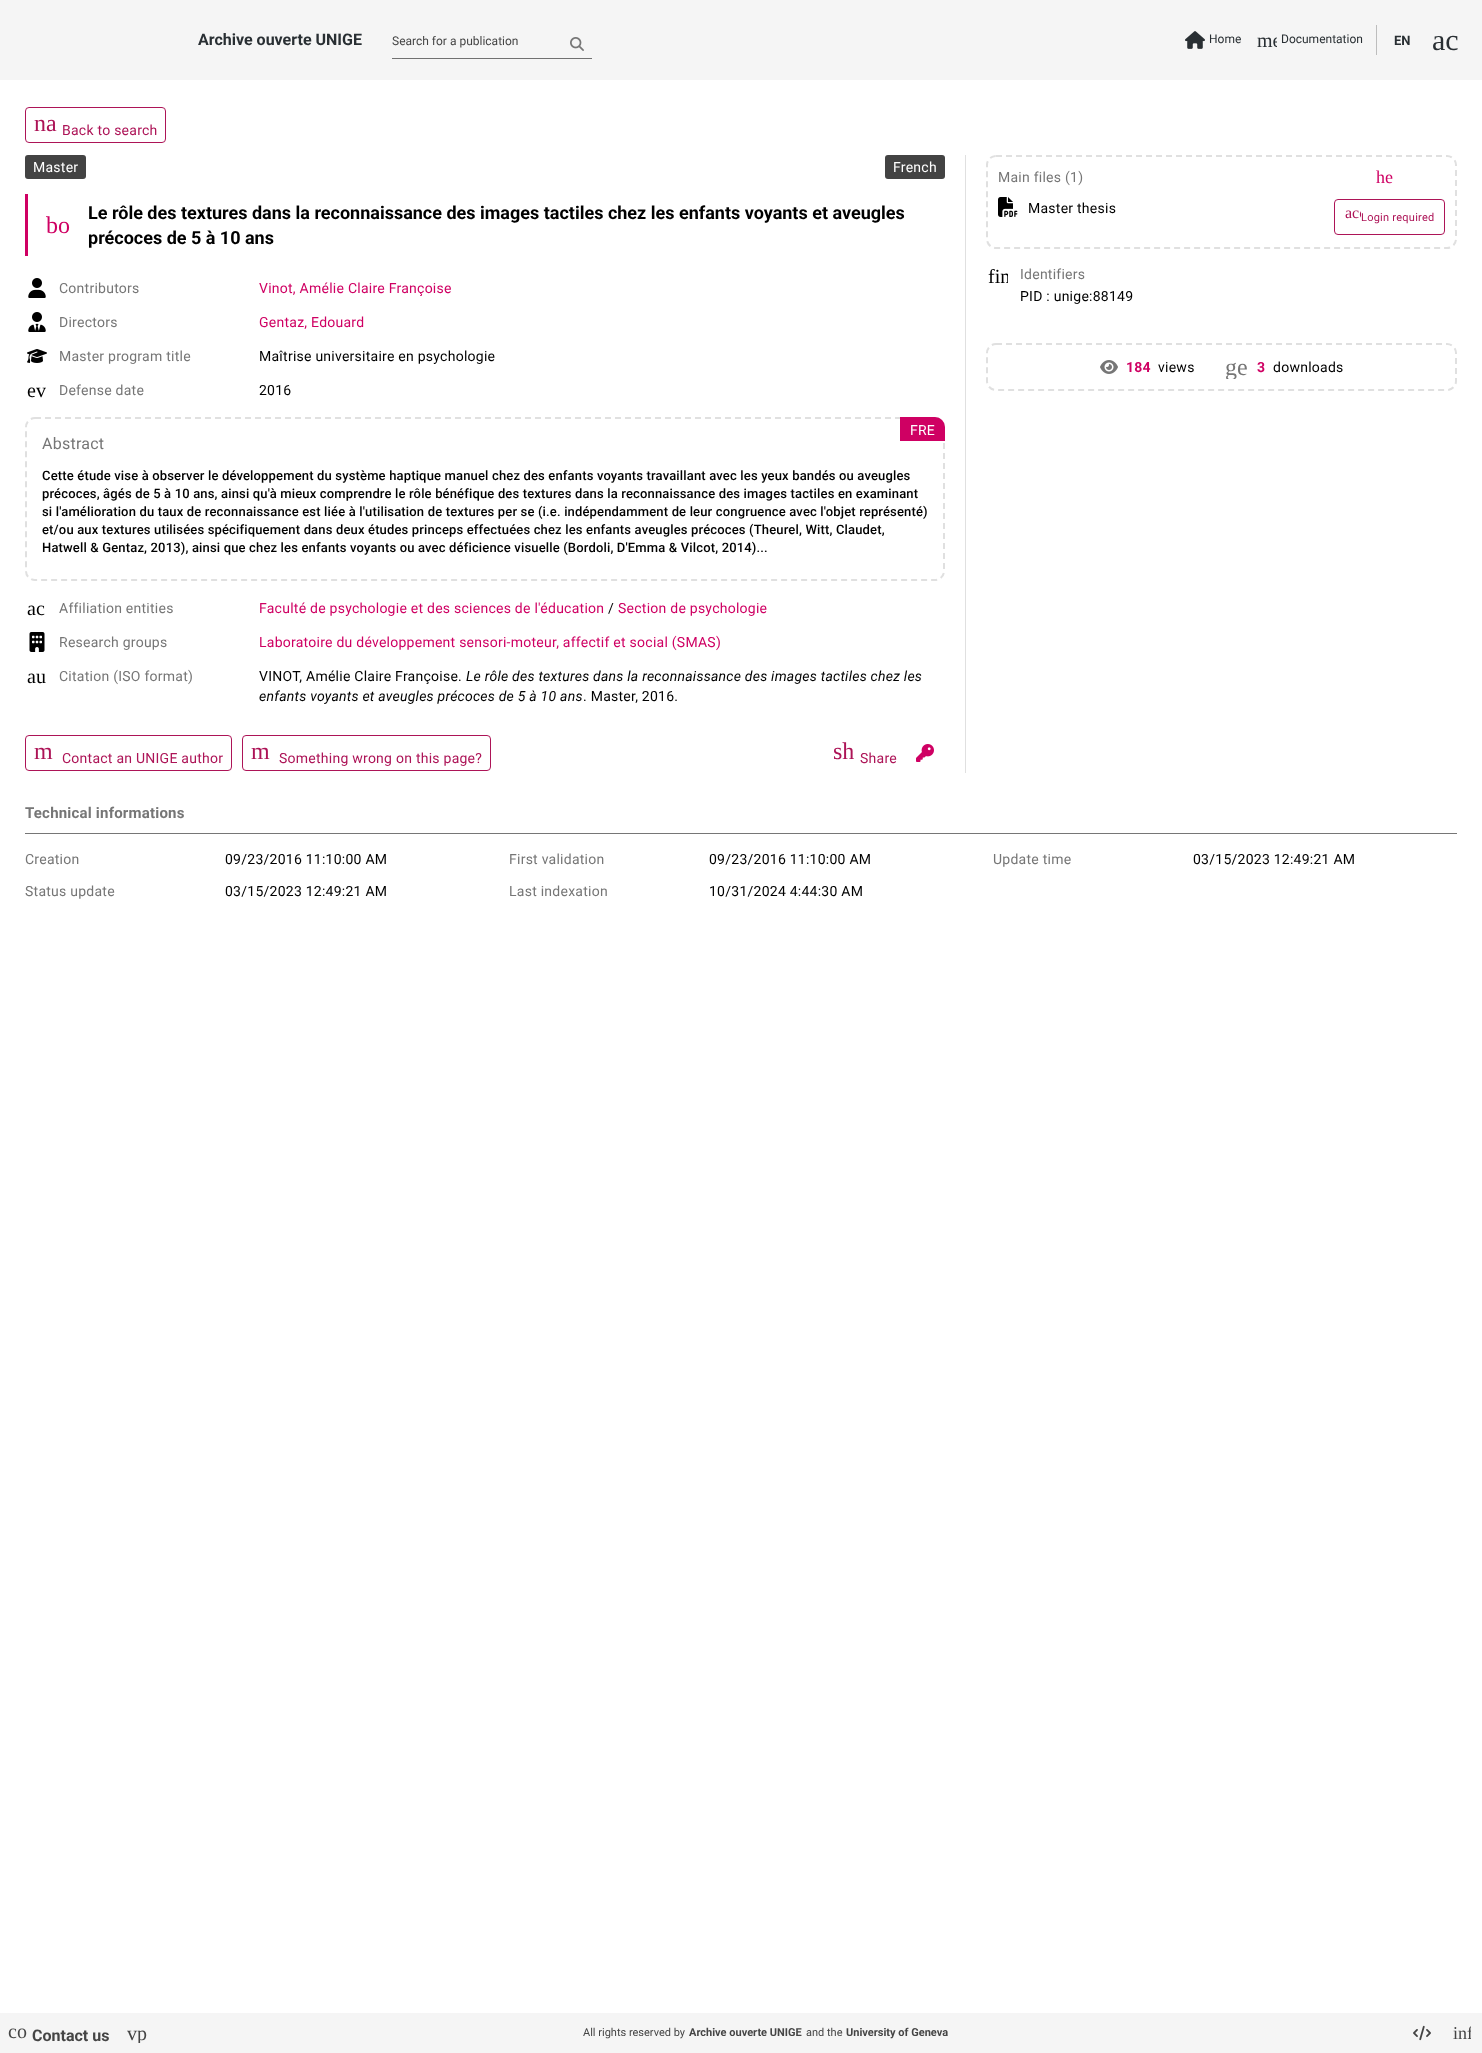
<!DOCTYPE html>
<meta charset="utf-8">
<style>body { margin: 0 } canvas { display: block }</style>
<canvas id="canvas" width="1482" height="2053"></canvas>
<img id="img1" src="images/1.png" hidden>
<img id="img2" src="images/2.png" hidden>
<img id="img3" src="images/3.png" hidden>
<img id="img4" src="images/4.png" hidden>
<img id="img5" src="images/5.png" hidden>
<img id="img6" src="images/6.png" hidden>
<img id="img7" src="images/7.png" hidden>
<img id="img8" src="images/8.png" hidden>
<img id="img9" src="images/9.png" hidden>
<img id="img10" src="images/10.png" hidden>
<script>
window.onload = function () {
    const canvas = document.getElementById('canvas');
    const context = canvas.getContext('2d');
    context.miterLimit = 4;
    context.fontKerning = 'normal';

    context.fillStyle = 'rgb(255, 255, 255)';
    context.fillRect(0, 0, 1482, 2053);
    context.fillStyle = 'rgb(245, 245, 245)';
    context.fillRect(0, 0, 1482, 80);
    context.drawImage(document.getElementById('img1'), 570, 37, 14, 14);
    context.fillStyle = 'rgb(113, 113, 113)';
    context.fillRect(392, 58, 200, 1);
    context.drawImage(document.getElementById('img2'), 1185, 31, 20, 18);
    context.fillStyle = 'rgb(189, 189, 189)';
    context.fillRect(1376, 25, 1, 30);
    context.beginPath();
    context.roundRect(25.5, 107.5, 140, 35, 3.5);
    context.strokeStyle = 'rgb(173, 20, 87)';
    context.stroke();
    context.fillStyle = 'rgb(224, 224, 224)';
    context.fillRect(965, 155, 1, 618);
    context.fillStyle = 'rgb(67, 67, 67)';
    context.beginPath();
    context.roundRect(25, 155, 61, 24, 3);
    context.fill();
    context.beginPath();
    context.roundRect(885, 155, 60, 24, 3);
    context.fill();
    context.fillStyle = 'rgb(207, 0, 99)';
    context.fillRect(25, 194, 3, 62);
    context.drawImage(document.getElementById('img3'), 28, 278, 18, 20);
    context.drawImage(document.getElementById('img4'), 28, 312, 18, 20);
    context.drawImage(document.getElementById('img5'), 27, 349, 20, 14);
    context.beginPath();
    context.moveTo(35, 418);
    context.lineTo(935, 418);
    context.bezierCurveTo(940, 418, 944, 422, 944, 427);
    context.lineTo(944, 571);
    context.bezierCurveTo(944, 576, 940, 580, 935, 580);
    context.lineTo(35, 580);
    context.bezierCurveTo(30, 580, 26, 576, 26, 571);
    context.lineTo(26, 427);
    context.bezierCurveTo(26, 422, 30, 418, 35, 418);
    context.closePath();
    context.strokeStyle = 'rgb(224, 224, 224)';
    context.lineWidth = 2;
    context.setLineDash([6, 4]);
    context.stroke();
    context.beginPath();
    context.roundRect(900, 417, 45, 24, [0, 10, 0, 0]);
    context.fill();
    context.drawImage(document.getElementById('img6'), 29, 632, 16, 20);
    context.beginPath();
    context.roundRect(25.5, 735.5, 206, 35, 3.5);
    context.strokeStyle = 'rgb(173, 20, 87)';
    context.lineWidth = 1;
    context.setLineDash([]);
    context.stroke();
    context.beginPath();
    context.roundRect(242.5, 735.5, 248, 35, 3.5);
    context.stroke();
    context.drawImage(document.getElementById('img7'), 916, 744, 18, 18);
    context.beginPath();
    context.moveTo(996, 156);
    context.lineTo(1447, 156);
    context.bezierCurveTo(1452, 156, 1456, 160, 1456, 165);
    context.lineTo(1456, 239);
    context.bezierCurveTo(1456, 244, 1452, 248, 1447, 248);
    context.lineTo(996, 248);
    context.bezierCurveTo(991, 248, 987, 244, 987, 239);
    context.lineTo(987, 165);
    context.bezierCurveTo(987, 160, 991, 156, 996, 156);
    context.closePath();
    context.strokeStyle = 'rgb(224, 224, 224)';
    context.lineWidth = 2;
    context.setLineDash([6, 4]);
    context.stroke();
    context.drawImage(document.getElementById('img8'), 998, 197, 20, 20);
    context.beginPath();
    context.roundRect(1334.5, 199.5, 110, 35, 3.5);
    context.strokeStyle = 'rgb(173, 20, 87)';
    context.lineWidth = 1;
    context.setLineDash([]);
    context.stroke();
    context.beginPath();
    context.moveTo(996, 344);
    context.lineTo(1447, 344);
    context.bezierCurveTo(1452, 344, 1456, 348, 1456, 353);
    context.lineTo(1456, 381);
    context.bezierCurveTo(1456, 386, 1452, 390, 1447, 390);
    context.lineTo(996, 390);
    context.bezierCurveTo(991, 390, 987, 386, 987, 381);
    context.lineTo(987, 353);
    context.bezierCurveTo(987, 348, 991, 344, 996, 344);
    context.closePath();
    context.strokeStyle = 'rgb(224, 224, 224)';
    context.lineWidth = 2;
    context.setLineDash([6, 4]);
    context.stroke();
    context.drawImage(document.getElementById('img9'), 1100, 360, 18, 14);
    context.fillStyle = 'rgb(118, 118, 118)';
    context.fillRect(25, 833, 1432, 1);
    context.fillStyle = 'rgb(245, 245, 245)';
    context.fillRect(0, 2013, 1482, 40);
    context.drawImage(document.getElementById('img10'), 1413, 2025, 18, 16);
    context.font = 'bold 16px Roboto';
    context.fillStyle = 'rgb(41, 47, 51)';
    context.fillText('Archive ouverte UNIGE', 198, 45);
    context.font = '12px Roboto';
    context.fillStyle = 'rgb(69, 69, 69)';
    context.fillText('Search for a publication', 392, 45);
    context.fillStyle = 'rgb(41, 47, 51)';
    context.fillText('Home', 1209, 43);
    context.save();
    context.beginPath();
    context.rect(1257, 30, 20, 20);
    context.clip();
    context.font = '20px Liberation Serif';
    context.fillText('me', 1257, 47);
    context.restore();
    context.fillText('Documentation', 1281, 43);
    context.font = 'bold 13px Roboto';
    context.fillText('EN', 1394, 45);
    context.font = '30px Liberation Serif';
    context.fillText('ac', 1432, 50);
    context.font = '24px Liberation Serif';
    context.fillStyle = 'rgb(173, 20, 87)';
    context.fillText('na', 34, 131);
    context.letterSpacing = '0.25px';
    context.font = '14px Roboto';
    context.fillText('Back to search', 62, 135);
    context.fillStyle = 'rgb(255, 255, 255)';
    context.fillText('Master', 33, 172);
    context.fillText('French', 893, 172);
    context.letterSpacing = '0px';
    context.font = '24px Liberation Serif';
    context.fillStyle = 'rgb(207, 0, 99)';
    context.fillText('bo', 46, 233);
    context.font = 'bold 18px Roboto';
    context.fillStyle = 'rgb(0, 0, 0)';
    context.fillText('Le rôle des textures dans la reconnaissance des images tactiles chez les enfants voyants et aveugles', 88, 219);
    context.fillText('précoces de 5 à 10 ans', 88, 244);
    context.letterSpacing = '0.25px';
    context.font = '14px Roboto';
    context.fillStyle = 'rgb(118, 118, 118)';
    context.fillText('Contributors', 59, 293);
    context.fillStyle = 'rgb(207, 0, 99)';
    context.fillText('Vinot, Amélie Claire Françoise', 259, 293);
    context.fillStyle = 'rgb(118, 118, 118)';
    context.fillText('Directors', 59, 327);
    context.fillStyle = 'rgb(207, 0, 99)';
    context.fillText('Gentaz, Edouard', 259, 327);
    context.fillStyle = 'rgb(118, 118, 118)';
    context.fillText('Master program title', 59, 361);
    context.fillStyle = 'rgb(0, 0, 0)';
    context.fillText('Maîtrise universitaire en psychologie', 259, 361);
    context.letterSpacing = '0px';
    context.font = '20px Liberation Serif';
    context.fillText('ev', 27, 397);
    context.letterSpacing = '0.25px';
    context.font = '14px Roboto';
    context.fillStyle = 'rgb(118, 118, 118)';
    context.fillText('Defense date', 59, 395);
    context.fillStyle = 'rgb(0, 0, 0)';
    context.fillText('2016', 259, 395);
    context.fillStyle = 'rgb(255, 255, 255)';
    context.fillText('FRE', 910, 435);
    context.font = '16px Roboto';
    context.fillStyle = 'rgb(118, 118, 118)';
    context.fillText('Abstract', 42, 449);
    context.letterSpacing = '0.16px';
    context.font = '500 13px Roboto';
    context.fillStyle = 'rgb(0, 0, 0)';
    context.fillText('Cette étude vise à observer le développement du système haptique manuel chez des enfants voyants travaillant avec les yeux bandés ou aveugles', 42, 480);
    context.fillText('précoces, âgés de 5 à 10 ans, ainsi qu\'à mieux comprendre le rôle bénéfique des textures dans la reconnaissance des images tactiles en examinant', 42, 498);
    context.fillText('si l\'amélioration du taux de reconnaissance est liée à l\'utilisation de textures per se (i.e. indépendamment de leur congruence avec l\'objet représenté)', 42, 516);
    context.fillText('et/ou aux textures utilisées spécifiquement dans deux études princeps effectuées chez les enfants aveugles précoces (Theurel, Witt, Claudet,', 42, 534);
    context.fillText('Hatwell & Gentaz, 2013), ainsi que chez les enfants voyants ou avec déficience visuelle (Bordoli, D\'Emma & Vilcot, 2014)...', 42, 552);
    context.letterSpacing = '0px';
    context.font = '20px Liberation Serif';
    context.fillText('ac', 27, 615);
    context.letterSpacing = '0.25px';
    context.font = '14px Roboto';
    context.fillStyle = 'rgb(118, 118, 118)';
    context.fillText('Affiliation entities', 59, 613);
    context.fillStyle = 'rgb(207, 0, 99)';
    context.fillText('Faculté de psychologie et des sciences de l\'éducation', 259, 613);
    context.fillStyle = 'rgb(0, 0, 0)';
    context.fillText('/', 608, 613);
    context.fillStyle = 'rgb(207, 0, 99)';
    context.fillText('Section de psychologie', 618, 613);
    context.fillStyle = 'rgb(118, 118, 118)';
    context.fillText('Research groups', 59, 647);
    context.fillStyle = 'rgb(207, 0, 99)';
    context.fillText('Laboratoire du développement sensori-moteur, affectif et social (SMAS)', 259, 647);
    context.letterSpacing = '0px';
    context.font = '20px Liberation Serif';
    context.fillStyle = 'rgb(0, 0, 0)';
    context.fillText('au', 27, 683);
    context.letterSpacing = '0.25px';
    context.font = '14px Roboto';
    context.fillStyle = 'rgb(118, 118, 118)';
    context.fillText('Citation (ISO format)', 59, 681);
    context.fillStyle = 'rgb(0, 0, 0)';
    context.fillText('VINOT, Amélie Claire Françoise.', 259, 681);
    context.font = 'italic 14px Roboto';
    context.fillText('Le rôle des textures dans la reconnaissance des images tactiles chez les', 466, 681);
    context.fillText('enfants voyants et aveugles précoces de 5 à 10 ans', 259, 701);
    context.font = '14px Roboto';
    context.fillText('. Master, 2016.', 583, 701);
    context.letterSpacing = '0px';
    context.font = '24px Liberation Serif';
    context.fillStyle = 'rgb(173, 20, 87)';
    context.fillText('m', 34, 759);
    context.letterSpacing = '0.25px';
    context.font = '14px Roboto';
    context.fillText('Contact an UNIGE author', 62, 763);
    context.letterSpacing = '0px';
    context.font = '24px Liberation Serif';
    context.fillText('m', 251, 759);
    context.letterSpacing = '0.25px';
    context.font = '14px Roboto';
    context.fillText('Something wrong on this page?', 279, 763);
    context.letterSpacing = '0px';
    context.font = '24px Liberation Serif';
    context.fillText('sh', 833, 759);
    context.letterSpacing = '0.25px';
    context.font = '14px Roboto';
    context.fillText('Share', 860, 763);
    context.fillStyle = 'rgb(118, 118, 118)';
    context.fillText('Main files (1)', 998, 182);
    context.letterSpacing = '0px';
    context.font = '18px Liberation Serif';
    context.fillStyle = 'rgb(207, 0, 99)';
    context.fillText('he', 1376, 183);
    context.letterSpacing = '0.25px';
    context.font = '14px Roboto';
    context.fillStyle = 'rgb(0, 0, 0)';
    context.fillText('Master thesis', 1028, 213);
    context.save();
    context.beginPath();
    context.rect(1345, 205, 16, 16);
    context.clip();
    context.letterSpacing = '0px';
    context.font = '16px Liberation Serif';
    context.fillStyle = 'rgb(173, 20, 87)';
    context.fillText('acc', 1345, 218);
    context.restore();
    context.font = '11px Roboto';
    context.fillStyle = 'rgb(173, 20, 87)';
    context.fillText('Login required', 1361, 221);
    context.save();
    context.beginPath();
    context.rect(988, 266, 20, 20);
    context.clip();
    context.letterSpacing = '0px';
    context.font = '20px Liberation Serif';
    context.fillStyle = 'rgb(0, 0, 0)';
    context.fillText('fin', 988, 283);
    context.restore();
    context.font = '14px Roboto';
    context.fillStyle = 'rgb(118, 118, 118)';
    context.fillText('Identifiers', 1020, 279);
    context.fillStyle = 'rgb(0, 0, 0)';
    context.fillText('PID : unige:88149', 1020, 301);
    context.font = 'bold 14px Roboto';
    context.fillStyle = 'rgb(207, 0, 99)';
    context.fillText('184', 1126, 372);
    context.font = '14px Roboto';
    context.fillStyle = 'rgb(0, 0, 0)';
    context.fillText('views', 1158, 372);
    context.save();
    context.beginPath();
    context.rect(1225, 355, 24, 24);
    context.clip();
    context.letterSpacing = '0px';
    context.font = '24px Liberation Serif';
    context.fillStyle = 'rgb(118, 118, 118)';
    context.fillText('ge', 1225, 375);
    context.restore();
    context.font = 'bold 14px Roboto';
    context.fillStyle = 'rgb(207, 0, 99)';
    context.fillText('3', 1257, 372);
    context.font = '14px Roboto';
    context.fillStyle = 'rgb(0, 0, 0)';
    context.fillText('downloads', 1273, 372);
    context.letterSpacing = '0.2px';
    context.font = 'bold 15px Roboto';
    context.fillStyle = 'rgb(118, 118, 118)';
    context.fillText('Technical informations', 25, 818);
    context.letterSpacing = '0.25px';
    context.font = '14px Roboto';
    context.fillText('Creation', 25, 864);
    context.fillStyle = 'rgb(0, 0, 0)';
    context.fillText('09/23/2016 11:10:00 AM', 225, 864);
    context.fillStyle = 'rgb(118, 118, 118)';
    context.fillText('First validation', 509, 864);
    context.fillStyle = 'rgb(0, 0, 0)';
    context.fillText('09/23/2016 11:10:00 AM', 709, 864);
    context.fillStyle = 'rgb(118, 118, 118)';
    context.fillText('Update time', 993, 864);
    context.fillStyle = 'rgb(0, 0, 0)';
    context.fillText('03/15/2023 12:49:21 AM', 1193, 864);
    context.fillStyle = 'rgb(118, 118, 118)';
    context.fillText('Status update', 25, 896);
    context.fillStyle = 'rgb(0, 0, 0)';
    context.fillText('03/15/2023 12:49:21 AM', 225, 896);
    context.fillStyle = 'rgb(118, 118, 118)';
    context.fillText('Last indexation', 509, 896);
    context.fillStyle = 'rgb(0, 0, 0)';
    context.fillText('10/31/2024 4:44:30 AM', 709, 896);
    context.letterSpacing = '0px';
    context.font = '20px Liberation Serif';
    context.fillStyle = 'rgb(69, 69, 69)';
    context.fillText('co', 8, 2038);
    context.font = 'bold 16px Roboto';
    context.fillText('Contact us', 32, 2041);
    context.save();
    context.beginPath();
    context.rect(127, 2023, 20, 20);
    context.clip();
    context.font = '20px Liberation Serif';
    context.fillText('vp', 127, 2040);
    context.restore();
    context.font = '11px Roboto';
    context.fillText('All rights reserved by', 583, 2036);
    context.font = 'bold 11px Roboto';
    context.fillText('Archive ouverte UNIGE', 689, 2036);
    context.font = '11px Roboto';
    context.fillText('and the', 806, 2036);
    context.font = 'bold 11px Roboto';
    context.fillText('University of Geneva', 846, 2036);
    context.save();
    context.beginPath();
    context.rect(1453, 2024, 18, 18);
    context.clip();
    context.font = '18px Liberation Serif';
    context.fillText('inf', 1453, 2039);
    context.restore();
};
</script>
